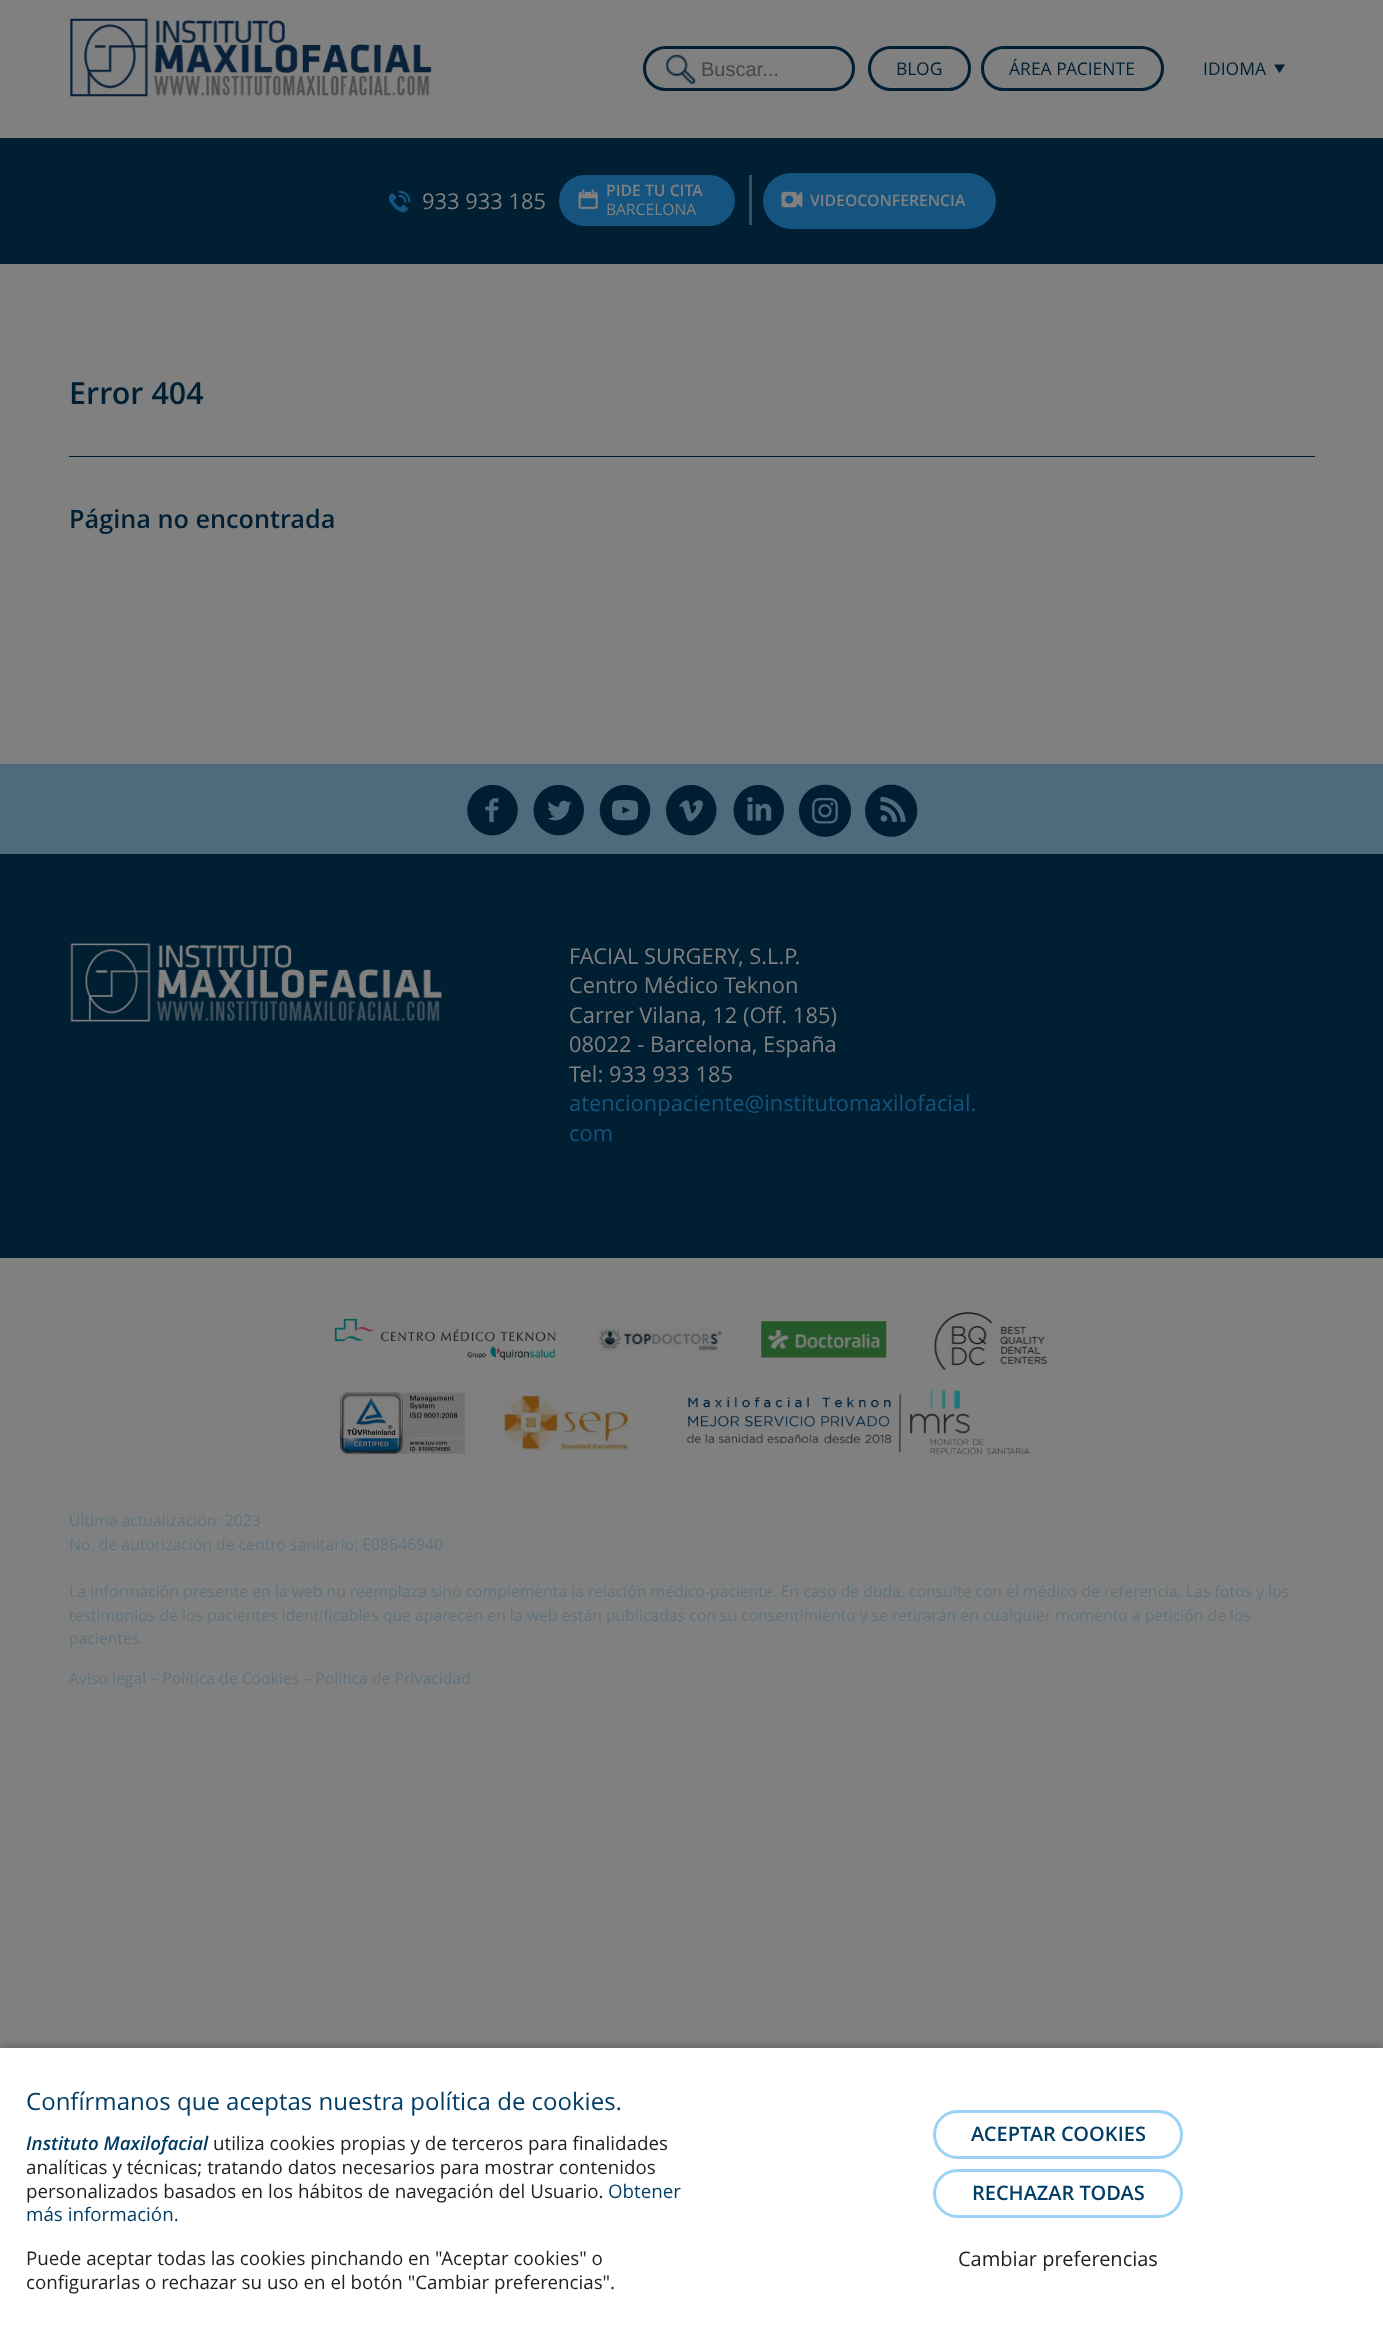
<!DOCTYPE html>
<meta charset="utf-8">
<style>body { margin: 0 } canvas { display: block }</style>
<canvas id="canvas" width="1383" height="2333"></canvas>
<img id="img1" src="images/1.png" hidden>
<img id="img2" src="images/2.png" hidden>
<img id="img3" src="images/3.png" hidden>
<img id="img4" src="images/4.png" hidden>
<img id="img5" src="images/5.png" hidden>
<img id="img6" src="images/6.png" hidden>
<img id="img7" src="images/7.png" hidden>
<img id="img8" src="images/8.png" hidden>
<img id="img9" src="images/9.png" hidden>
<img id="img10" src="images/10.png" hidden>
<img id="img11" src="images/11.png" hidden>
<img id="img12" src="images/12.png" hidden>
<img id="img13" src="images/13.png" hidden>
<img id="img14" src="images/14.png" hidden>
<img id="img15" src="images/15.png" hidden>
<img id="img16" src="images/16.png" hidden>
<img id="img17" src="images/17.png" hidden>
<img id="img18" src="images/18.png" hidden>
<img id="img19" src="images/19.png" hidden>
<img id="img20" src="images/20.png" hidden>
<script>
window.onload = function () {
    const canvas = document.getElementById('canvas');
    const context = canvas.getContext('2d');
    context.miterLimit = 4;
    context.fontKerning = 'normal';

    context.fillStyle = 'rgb(128, 128, 128)';
    context.fillRect(0, 0, 1383, 2333);
    context.drawImage(document.getElementById('img1'), 70, 18, 362, 79);
    context.drawImage(document.getElementById('img2'), 666, 54, 30, 30);
    context.beginPath();
    context.roundRect(644.5, 47.5, 209, 42, 21);
    context.strokeStyle = 'rgb(1, 31, 51)';
    context.lineWidth = 3;
    context.stroke();
    context.beginPath();
    context.roundRect(869.5, 47.5, 100, 42, 21);
    context.stroke();
    context.beginPath();
    context.roundRect(982.5, 47.5, 180, 42, 21);
    context.stroke();
    context.fillStyle = 'rgb(1, 31, 51)';
    context.beginPath();
    context.moveTo(1285, 64.5);
    context.lineTo(1279.5, 73);
    context.lineTo(1274, 64.5);
    context.closePath();
    context.fill();
    context.fillRect(0, 138, 1383, 126);
    context.drawImage(document.getElementById('img3'), 388, 190, 23, 23);
    context.fillStyle = 'rgb(20, 84, 126)';
    context.beginPath();
    context.roundRect(559, 175, 176, 51, 25.5);
    context.fill();
    context.drawImage(document.getElementById('img4'), 578, 189, 20, 20);
    context.fillStyle = 'rgb(40, 86, 106)';
    context.fillRect(749, 175, 3, 50);
    context.fillStyle = 'rgb(20, 84, 126)';
    context.beginPath();
    context.roundRect(763, 173, 233, 56, 28);
    context.fill();
    context.drawImage(document.getElementById('img5'), 781, 191, 22, 17);
    context.fillStyle = 'rgb(1, 31, 51)';
    context.fillRect(69, 456, 1246, 1);
    context.fillStyle = 'rgb(78, 106, 124)';
    context.fillRect(0, 764, 1383, 90);
    context.drawImage(document.getElementById('img6'), 467, 784, 51, 52);
    context.drawImage(document.getElementById('img7'), 533, 784, 51, 52);
    context.drawImage(document.getElementById('img8'), 599, 784, 52, 52);
    context.drawImage(document.getElementById('img9'), 666, 784, 51, 52);
    context.drawImage(document.getElementById('img10'), 733, 784, 51, 52);
    context.drawImage(document.getElementById('img11'), 798, 784, 54, 53);
    context.drawImage(document.getElementById('img12'), 865, 784, 53, 53);
    context.fillStyle = 'rgb(1, 31, 51)';
    context.fillRect(0, 854, 1383, 404);
    context.drawImage(document.getElementById('img13'), 70, 943, 372, 79);
    context.drawImage(document.getElementById('img14'), 334, 1318, 222, 42);
    context.drawImage(document.getElementById('img15'), 597, 1327, 126, 25);
    context.drawImage(document.getElementById('img16'), 761, 1321, 126, 37);
    context.drawImage(document.getElementById('img17'), 934, 1311, 114, 59);
    context.drawImage(document.getElementById('img18'), 340, 1392, 125, 62);
    context.drawImage(document.getElementById('img19'), 503, 1395, 126, 57);
    context.drawImage(document.getElementById('img20'), 686, 1389, 344, 66);
    context.fillStyle = 'rgba(31, 31, 31, 0.5)';
    context.filter = 'blur(5.5px)';
    context.beginPath();
    context.rect(1, 2049, 1382, 284);
    context.fill();
    context.filter = 'none';
    context.fillStyle = 'rgb(255, 255, 255)';
    context.fillRect(0, 2048, 1383, 285);
    context.beginPath();
    context.roundRect(934.5, 2111.5, 247, 46, 23);
    context.strokeStyle = 'rgb(155, 211, 247)';
    context.stroke();
    context.beginPath();
    context.roundRect(934.5, 2170.5, 247, 46, 23);
    context.stroke();
    context.font = '20px Liberation Sans';
    context.fillStyle = 'rgb(70, 70, 70)';
    context.fillText('Buscar...', 701, 76);
    context.font = '17.5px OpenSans';
    context.fillStyle = 'rgb(1, 31, 51)';
    context.fillText('BLOG', 896, 75);
    context.fillText('ÁREA PACIENTE', 1009, 75);
    context.fillText('IDIOMA', 1203, 75);
    context.font = '21.9px OpenSans';
    context.fillStyle = 'rgb(128, 128, 128)';
    context.fillText('933 933 185', 422, 209);
    context.font = '600 15.75px Open Sans';
    context.fillText('PIDE TU CITA', 606, 196);
    context.font = '15.75px OpenSans';
    context.fillText('BARCELONA', 606, 215);
    context.font = '600 15.75px Open Sans';
    context.fillText('VIDEOCONFERENCIA', 810, 206);
    context.font = '600 30.5px Open Sans';
    context.fillStyle = 'rgb(1, 31, 51)';
    context.fillText('Error 404', 69, 404);
    context.font = '600 25.25px Open Sans';
    context.fillText('Página no encontrada', 69, 528);
    context.font = '21.9px OpenSans';
    context.fillStyle = 'rgb(128, 128, 128)';
    context.fillText('FACIAL SURGERY, S.L.P.', 569, 964);
    context.fillText('Centro Médico Teknon', 569, 993);
    context.fillText('Carrer Vilana, 12 (Off. 185)', 569, 1023);
    context.fillText('08022 - Barcelona, España', 569, 1052);
    context.fillText('Tel: 933 933 185', 569, 1082);
    context.fillStyle = 'rgb(20, 84, 126)';
    context.fillText('atencionpaciente@institutomaxilofacial.', 569, 1111);
    context.fillText('com', 569, 1141);
    context.font = '15.75px OpenSans';
    context.fillStyle = 'rgb(97, 114, 125)';
    context.fillText('Última actualización: 2023', 69, 1526);
    context.fillText('No. de autorización de centro sanitario: E08646940', 69, 1550);
    context.fillText('La información presente en la web no reemplaza sino complementa la relación médico-paciente. En caso de duda, consulte con el médico de referencia. Las fotos y los', 69, 1597);
    context.fillText('testimonios de los pacientes identificables que aparecen en la web están publicadas con su consentimiento y se retirarán en cualquier momento a petición de los', 69, 1621);
    context.fillText('pacientes.', 69, 1644);
    context.fillText('Aviso legal – Política de Cookies – Política de Privacidad', 69, 1684);
    context.font = '24px OpenSans';
    context.fillStyle = 'rgb(1, 61, 101)';
    context.fillText('Confírmanos que aceptas nuestra política de cookies.', 26, 2110);
    context.font = 'italic 600 18.75px Open Sans';
    context.fillText('Instituto Maxilofacial', 26, 2150);
    context.font = '18.75px OpenSans';
    context.fillStyle = 'rgb(33, 33, 33)';
    context.fillText('utiliza cookies propias y de terceros para finalidades', 213, 2150);
    context.fillText('analíticas y técnicas; tratando datos necesarios para mostrar contenidos', 26, 2174);
    context.fillText('personalizados basados en los hábitos de navegación del Usuario.', 26, 2198);
    context.fillStyle = 'rgb(1, 61, 101)';
    context.fillText('Obtener', 608, 2198);
    context.fillText('más información.', 26, 2221);
    context.fillStyle = 'rgb(33, 33, 33)';
    context.fillText('Puede aceptar todas las cookies pinchando en "Aceptar cookies" o', 26, 2265);
    context.fillText('configurarlas o rechazar su uso en el botón "Cambiar preferencias".', 26, 2289);
    context.font = '600 20px Open Sans';
    context.fillStyle = 'rgb(1, 61, 101)';
    context.fillText('ACEPTAR COOKIES', 971, 2141);
    context.fillText('RECHAZAR TODAS', 972, 2200);
    context.font = '20px OpenSans';
    context.fillStyle = 'rgb(33, 33, 33)';
    context.fillText('Cambiar preferencias', 958, 2266);
};
</script>
